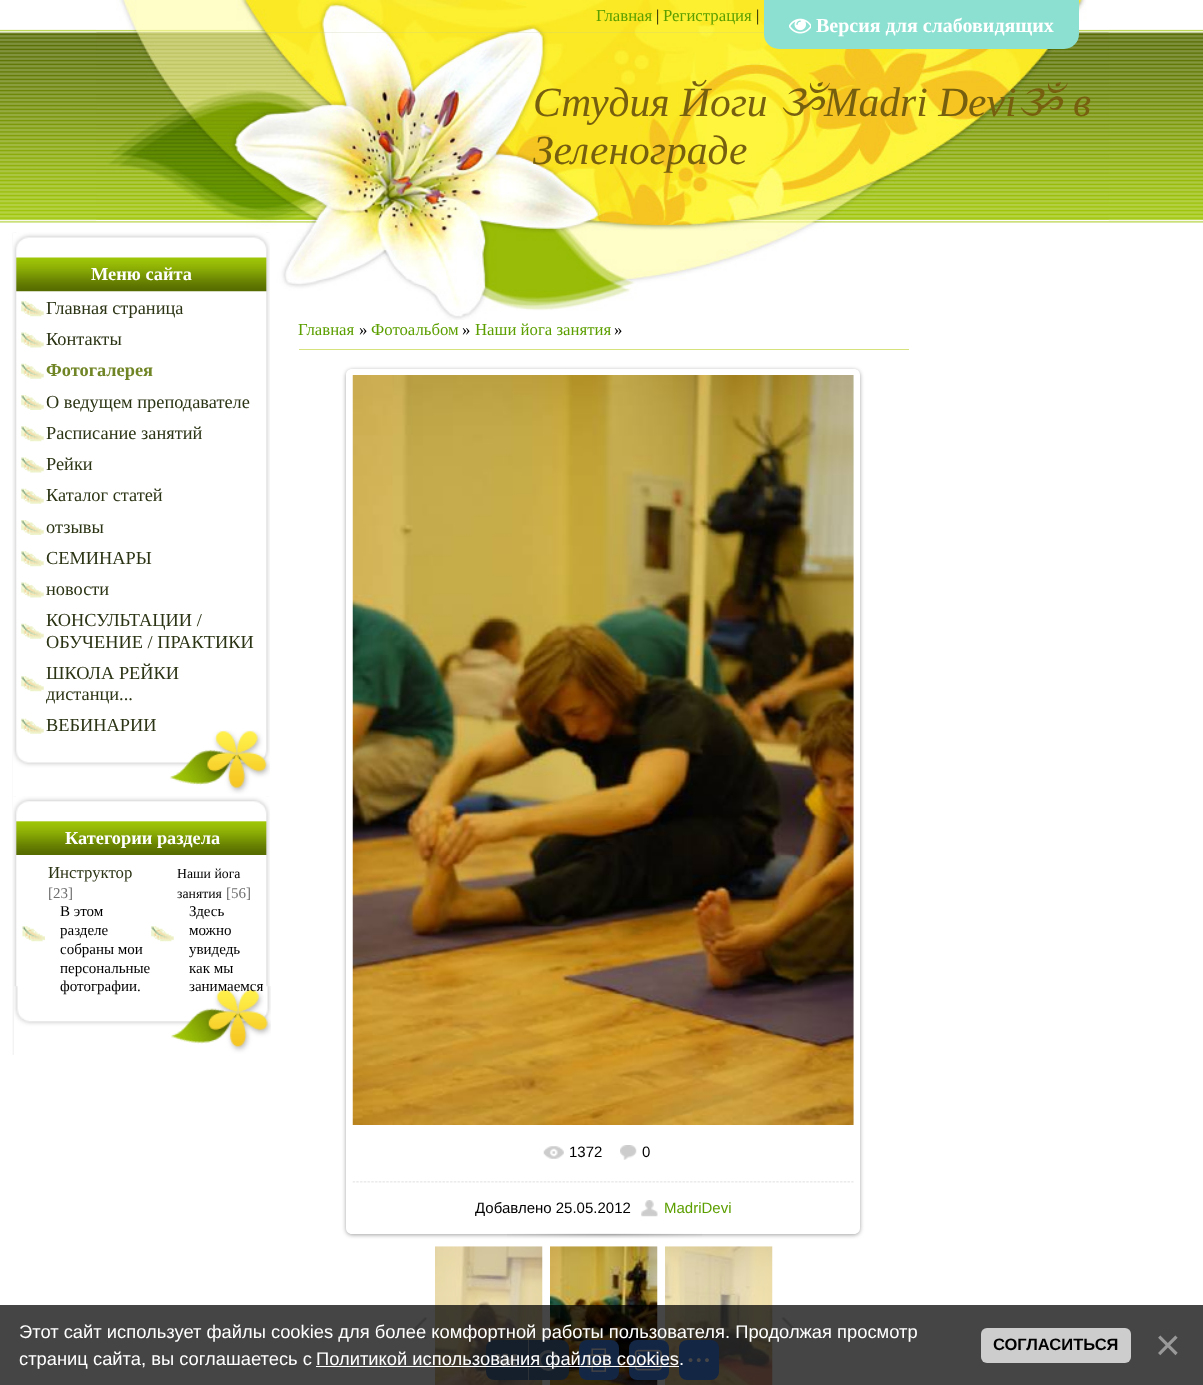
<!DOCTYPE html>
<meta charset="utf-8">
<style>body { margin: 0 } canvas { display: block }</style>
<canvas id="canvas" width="1203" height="1385"></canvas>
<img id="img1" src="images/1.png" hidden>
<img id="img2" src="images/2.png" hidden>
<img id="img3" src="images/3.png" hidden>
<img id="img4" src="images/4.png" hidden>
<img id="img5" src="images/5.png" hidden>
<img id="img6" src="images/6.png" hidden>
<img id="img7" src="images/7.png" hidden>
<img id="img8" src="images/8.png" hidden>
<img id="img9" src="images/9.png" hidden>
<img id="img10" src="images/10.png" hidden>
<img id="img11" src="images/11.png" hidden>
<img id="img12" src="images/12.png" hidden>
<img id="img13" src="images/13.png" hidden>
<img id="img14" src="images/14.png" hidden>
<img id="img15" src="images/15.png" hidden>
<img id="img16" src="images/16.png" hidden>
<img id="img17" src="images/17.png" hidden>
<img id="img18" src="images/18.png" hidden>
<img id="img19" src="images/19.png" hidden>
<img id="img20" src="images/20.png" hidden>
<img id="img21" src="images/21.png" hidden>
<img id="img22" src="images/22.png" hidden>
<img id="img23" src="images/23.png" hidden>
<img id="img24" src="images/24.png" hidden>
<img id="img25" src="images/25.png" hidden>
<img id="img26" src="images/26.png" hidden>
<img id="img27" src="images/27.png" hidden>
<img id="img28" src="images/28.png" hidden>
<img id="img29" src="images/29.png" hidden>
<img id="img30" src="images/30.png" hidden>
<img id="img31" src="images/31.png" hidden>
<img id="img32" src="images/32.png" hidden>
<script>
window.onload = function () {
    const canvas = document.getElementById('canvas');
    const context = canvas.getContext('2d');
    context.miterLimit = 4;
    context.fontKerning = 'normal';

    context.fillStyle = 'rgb(255, 255, 255)';
    context.fillRect(0, 0, 1203, 1385);
    context.drawImage(document.getElementById('img1'), 0, 29, 1203, 194);
    context.drawImage(document.getElementById('img2'), 96, 0, 1013, 33);
    context.drawImage(document.getElementById('img3'), 96, 32, 1013, 188);
    context.drawImage(document.getElementById('img4'), 96, 220, 1013, 100);
    context.drawImage(document.getElementById('img5'), 12, 232, 258, 565);
    context.drawImage(document.getElementById('img6'), 13, 232, 257, 60);
    context.drawImage(document.getElementById('img7'), 13, 730, 257, 66);
    context.drawImage(document.getElementById('img8'), 21, 301, 23, 16);
    context.drawImage(document.getElementById('img9'), 21, 332, 23, 16);
    context.drawImage(document.getElementById('img10'), 21, 363, 23, 16);
    context.drawImage(document.getElementById('img11'), 21, 395, 23, 15);
    context.drawImage(document.getElementById('img8'), 21, 426, 23, 16);
    context.drawImage(document.getElementById('img9'), 21, 457, 23, 16);
    context.drawImage(document.getElementById('img10'), 21, 488, 23, 16);
    context.drawImage(document.getElementById('img11'), 21, 520, 23, 15);
    context.drawImage(document.getElementById('img8'), 21, 551, 23, 16);
    context.drawImage(document.getElementById('img12'), 21, 582, 23, 16);
    context.drawImage(document.getElementById('img10'), 21, 623, 23, 16);
    context.drawImage(document.getElementById('img8'), 21, 676, 23, 16);
    context.drawImage(document.getElementById('img10'), 21, 718, 23, 16);
    context.drawImage(document.getElementById('img13'), 12, 796, 258, 259);
    context.drawImage(document.getElementById('img14'), 13, 796, 257, 59);
    context.drawImage(document.getElementById('img15'), 14, 986, 257, 69);
    context.drawImage(document.getElementById('img16'), 22, 926, 23, 16);
    context.drawImage(document.getElementById('img8'), 151, 926, 23, 16);
    context.fillStyle = 'rgb(214, 227, 125)';
    context.fillRect(299, 349, 610, 1);
    context.save();
    context.beginPath();
    context.moveTo(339, 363);
    context.lineTo(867, 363);
    context.lineTo(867, 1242);
    context.lineTo(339, 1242);
    context.closePath();
    context.moveTo(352, 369);
    context.lineTo(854, 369);
    context.bezierCurveTo(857.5, 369, 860, 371.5, 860, 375);
    context.lineTo(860, 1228);
    context.bezierCurveTo(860, 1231.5, 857.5, 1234, 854, 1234);
    context.lineTo(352, 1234);
    context.bezierCurveTo(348.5, 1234, 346, 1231.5, 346, 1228);
    context.lineTo(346, 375);
    context.bezierCurveTo(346, 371.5, 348.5, 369, 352, 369);
    context.closePath();
    context.clip('evenodd');
    context.fillStyle = 'rgba(0, 0, 0, 0.37)';
    context.filter = 'blur(2px)';
    context.beginPath();
    context.roundRect(346, 370, 514, 865, 6);
    context.fill();
    context.filter = 'none';
    context.restore();
    context.drawImage(document.getElementById('img17'), 352, 375, 502, 750);
    context.drawImage(document.getElementById('img18'), 543, 1146, 21, 13);
    context.drawImage(document.getElementById('img19'), 620, 1145, 17, 15);
    context.drawImage(document.getElementById('img20'), 352, 1181, 502, 2);
    context.drawImage(document.getElementById('img21'), 641, 1200, 17, 17);
    context.drawImage(document.getElementById('img22'), 507, 1233, 195, 5);
    context.drawImage(document.getElementById('img23'), 414, 1317, 14, 22);
    context.drawImage(document.getElementById('img24'), 435, 1246, 108, 139);
    context.drawImage(document.getElementById('img25'), 550, 1246, 108, 139);
    context.drawImage(document.getElementById('img26'), 665, 1246, 108, 139);
    context.drawImage(document.getElementById('img27'), 781, 1317, 14, 22);
    context.fillStyle = 'rgb(77, 117, 163)';
    context.beginPath();
    context.roundRect(486, 1340, 83, 40, 8);
    context.fill();
    context.drawImage(document.getElementById('img28'), 495, 1353, 23, 13);
    context.fillStyle = 'rgb(166, 186, 209)';
    context.fillRect(528, 1340, 1, 40);
    context.beginPath();
    context.arc(548.5, 1360.5, 9, 0, 2 * Math.PI);
    context.strokeStyle = 'rgb(184, 200, 218)';
    context.lineWidth = 3;
    context.stroke();
    context.fillStyle = 'rgb(73, 139, 250)';
    context.beginPath();
    context.roundRect(579, 1340, 40, 40, 8);
    context.fill();
    context.drawImage(document.getElementById('img29'), 587, 1348, 24, 24);
    context.beginPath();
    context.roundRect(629, 1340, 40, 40, 8);
    context.fill();
    context.drawImage(document.getElementById('img30'), 634, 1349, 28, 22);
    context.beginPath();
    context.roundRect(679, 1340, 40, 40, 8);
    context.fill();
    context.drawImage(document.getElementById('img31'), 688, 1358, 21, 5);
    context.fillStyle = 'rgb(139, 224, 209)';
    context.beginPath();
    context.roundRect(764, 0, 315, 49, [0, 0, 15, 15]);
    context.fill();
    context.drawImage(document.getElementById('img32'), 789, 18, 22, 16);
    context.fillStyle = 'rgba(0, 0, 0, 0.73)';
    context.fillRect(0, 1305, 1203, 80);
    context.fillStyle = 'rgb(255, 255, 255)';
    context.fillRect(316, 1366, 363, 1);
    context.fillStyle = 'rgb(205, 205, 205)';
    context.beginPath();
    context.roundRect(981, 1328, 150, 35, 6);
    context.fill();
    context.font = '16.75px Liberation Serif';
    context.fillStyle = 'rgb(92, 159, 0)';
    context.fillText('Главная', 596, 21);
    context.fillStyle = 'rgb(0, 0, 0)';
    context.fillText('|', 656, 21);
    context.fillStyle = 'rgb(92, 159, 0)';
    context.fillText('Регистрация', 663, 21);
    context.fillStyle = 'rgb(0, 0, 0)';
    context.fillText('|', 756, 21);
    context.font = 'italic 41.5px Liberation Serif';
    context.fillStyle = 'rgb(119, 95, 16)';
    context.fillText('Студия Йоги', 533, 116);
    context.font = 'italic 41.5px FreeSerif';
    context.fillText('ૐ', 779, 116);
    context.font = 'italic 41.5px Liberation Serif';
    context.fillText('Madri Devi', 824, 116);
    context.font = 'italic 41.5px FreeSerif';
    context.fillText('ૐ', 1017, 116);
    context.font = 'italic 41.5px Liberation Serif';
    context.fillText('в', 1073, 116);
    context.fillText('Зеленограде', 533, 164);
    context.font = 'bold 18.35px Liberation Serif';
    context.fillStyle = 'rgb(255, 255, 255)';
    context.fillText('Меню сайта', 91, 280);
    context.font = '18.35px Liberation Serif';
    context.fillStyle = 'rgb(43, 52, 20)';
    context.fillText('Главная страница', 46, 314);
    context.fillText('Контакты', 46, 345);
    context.font = 'bold 18.35px Liberation Serif';
    context.fillStyle = 'rgb(112, 133, 37)';
    context.fillText('Фотогалерея', 46, 376);
    context.font = '18.35px Liberation Serif';
    context.fillStyle = 'rgb(43, 52, 20)';
    context.fillText('O ведущем преподавателе', 46, 408);
    context.fillText('Расписание занятий', 46, 439);
    context.fillText('Рейки', 46, 470);
    context.fillText('Каталог статей', 46, 501);
    context.fillText('отзывы', 46, 533);
    context.fillText('СЕМИНАРЫ', 46, 564);
    context.fillText('новости', 46, 595);
    context.fillText('КОНСУЛЬТАЦИИ /', 46, 626);
    context.fillText('ОБУЧЕНИЕ / ПРАКТИКИ', 46, 648);
    context.fillText('ШКОЛА РЕЙКИ', 46, 679);
    context.fillText('дистанци...', 46, 700);
    context.fillText('ВЕБИНАРИИ', 46, 731);
    context.font = 'bold 18.35px Liberation Serif';
    context.fillStyle = 'rgb(255, 255, 255)';
    context.fillText('Категории раздела', 65, 844);
    context.font = '16.75px Liberation Serif';
    context.fillStyle = 'rgb(43, 52, 20)';
    context.fillText('Инструктор', 48, 878);
    context.font = '15px Liberation Serif';
    context.fillStyle = 'rgb(110, 110, 110)';
    context.fillText('[23]', 48, 898);
    context.fillStyle = 'rgb(0, 0, 0)';
    context.fillText('В этом', 60, 916);
    context.fillText('разделе', 60, 935);
    context.fillText('собраны мои', 60, 954);
    context.fillText('персональные', 60, 973);
    context.fillText('фотографии.', 60, 991);
    context.font = '13.75px Liberation Serif';
    context.fillText('Наши йога', 177, 878);
    context.fillText('занятия', 177, 898);
    context.font = '15px Liberation Serif';
    context.fillStyle = 'rgb(110, 110, 110)';
    context.fillText('[56]', 226, 898);
    context.fillStyle = 'rgb(0, 0, 0)';
    context.fillText('Здесь', 189, 916);
    context.fillText('можно', 189, 935);
    context.fillText('увидедь', 189, 954);
    context.fillText('как мы', 189, 973);
    context.fillText('занимаемся', 189, 991);
    context.font = '16.75px Liberation Serif';
    context.fillStyle = 'rgb(92, 159, 0)';
    context.fillText('Главная', 298, 335);
    context.fillStyle = 'rgb(0, 0, 0)';
    context.fillText('»', 359, 335);
    context.fillStyle = 'rgb(92, 159, 0)';
    context.fillText('Фотоальбом', 371, 335);
    context.fillStyle = 'rgb(0, 0, 0)';
    context.fillText('»', 462, 335);
    context.fillStyle = 'rgb(92, 159, 0)';
    context.fillText('Наши йога занятия', 475, 335);
    context.fillStyle = 'rgb(0, 0, 0)';
    context.fillText('»', 614, 335);
    context.font = '15px Liberation Sans';
    context.fillText('1372', 569, 1157);
    context.fillText('0', 642, 1157);
    context.fillText('Добавлено 25.05.2012', 475, 1213);
    context.fillStyle = 'rgb(92, 159, 0)';
    context.fillText('MadriDevi', 664, 1213);
    context.font = 'bold 20px Liberation Serif';
    context.fillStyle = 'rgb(255, 255, 255)';
    context.fillText('Версия для слабовидящих', 816, 32);
    context.font = '18.35px Liberation Sans';
    context.fillText('Этот сайт использует файлы cookies для более комфортной работы пользователя. Продолжая просмотр', 19, 1338);
    context.fillText('страниц сайта, вы соглашаетесь с', 19, 1365);
    context.fillText('Политикой использования файлов cookies.', 316, 1365);
    context.font = 'bold 16.5px Liberation Sans';
    context.fillStyle = 'rgb(0, 0, 0)';
    context.fillText('СОГЛАСИТЬСЯ', 993, 1350);
    context.font = '44px Liberation Sans';
    context.fillStyle = 'rgb(153, 153, 153)';
    context.fillText('×', 1155, 1360);
};
</script>
